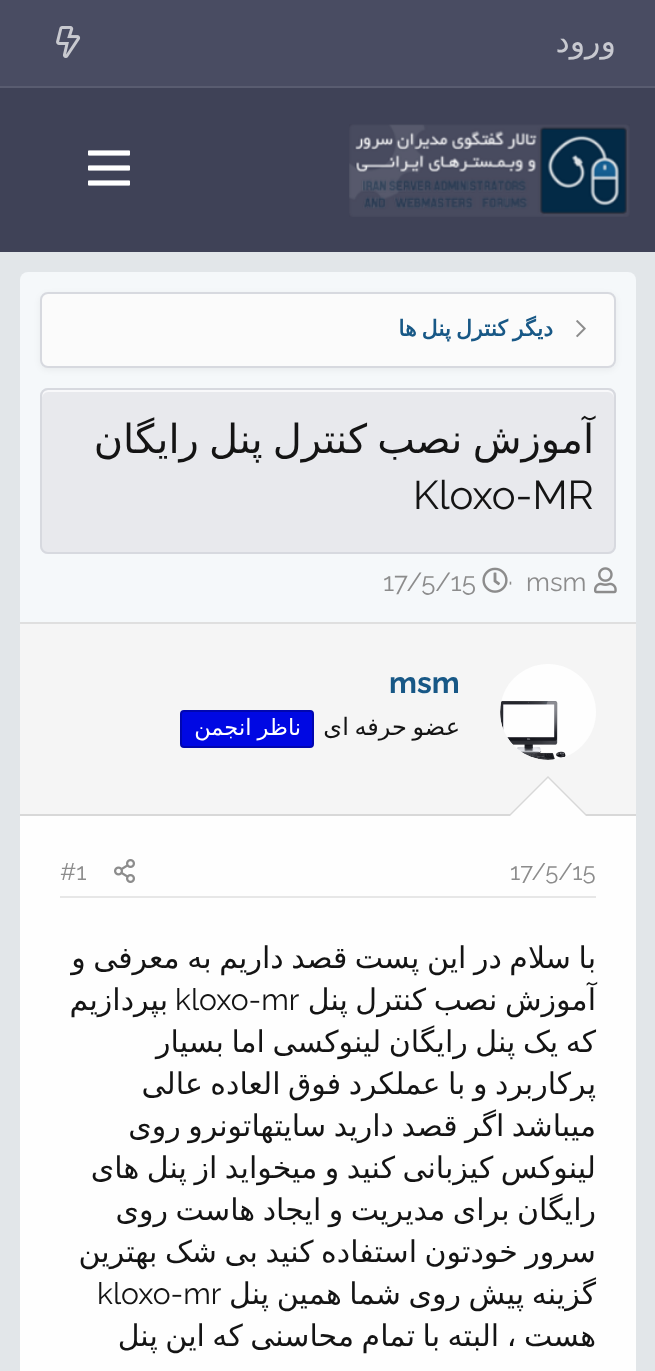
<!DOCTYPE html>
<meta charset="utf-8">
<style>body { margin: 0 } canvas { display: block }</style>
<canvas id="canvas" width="655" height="1371"></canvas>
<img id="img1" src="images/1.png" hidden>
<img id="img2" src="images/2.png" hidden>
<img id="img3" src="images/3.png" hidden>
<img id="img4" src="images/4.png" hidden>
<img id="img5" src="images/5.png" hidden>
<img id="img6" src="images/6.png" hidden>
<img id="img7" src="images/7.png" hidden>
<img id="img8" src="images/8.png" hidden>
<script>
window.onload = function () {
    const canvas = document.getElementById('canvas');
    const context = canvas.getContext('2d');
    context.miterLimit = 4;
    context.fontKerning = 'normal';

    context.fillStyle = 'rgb(226, 230, 233)';
    context.fillRect(0, 0, 655, 1371);
    context.fillStyle = 'rgb(73, 76, 98)';
    context.fillRect(0, 0, 655, 86);
    context.fillStyle = 'rgb(89, 92, 112)';
    context.fillRect(0, 86, 655, 2);
    context.drawImage(document.getElementById('img1'), 56, 26, 25, 32);
    context.fillStyle = 'rgb(63, 66, 87)';
    context.fillRect(0, 88, 655, 164);
    context.drawImage(document.getElementById('img2'), 349, 124, 281, 93);
    context.drawImage(document.getElementById('img3'), 88, 150, 42, 36);
    context.fillStyle = 'rgb(245, 248, 250)';
    context.beginPath();
    context.roundRect(20, 272, 616, 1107, 8);
    context.fill();
    context.fillStyle = 'rgba(0, 0, 0, 0.05)';
    context.filter = 'blur(3px)';
    context.beginPath();
    context.roundRect(40, 294, 576, 76, 8);
    context.fill();
    context.filter = 'none';
    context.fillStyle = 'rgb(251, 251, 251)';
    context.beginPath();
    context.roundRect(41, 293, 574, 74, 7);
    context.fill();
    context.strokeStyle = 'rgb(215, 217, 223)';
    context.lineWidth = 2;
    context.stroke();
    context.drawImage(document.getElementById('img4'), 576, 320, 10, 18);
    context.fillStyle = 'rgb(232, 233, 237)';
    context.beginPath();
    context.roundRect(40, 388, 576, 166, 8);
    context.fill();
    context.fillStyle = 'rgb(248, 248, 250)';
    context.beginPath();
    context.moveTo(48, 392);
    context.lineTo(608, 392);
    context.bezierCurveTo(611, 392, 614, 395, 614, 398);
    context.bezierCurveTo(614, 394, 613, 390, 608, 390);
    context.lineTo(48, 390);
    context.bezierCurveTo(43, 390, 42, 394, 42, 398);
    context.bezierCurveTo(42, 395, 45, 392, 48, 392);
    context.closePath();
    context.fill();
    context.beginPath();
    context.roundRect(41, 389, 574, 164, 7);
    context.stroke();
    context.drawImage(document.getElementById('img5'), 594, 567, 23, 27);
    context.drawImage(document.getElementById('img6'), 482, 567, 26, 26);
    context.fillStyle = 'rgb(254, 254, 254)';
    context.fillRect(20, 816, 616, 555);
    context.fillStyle = 'rgb(223, 223, 223)';
    context.fillRect(20, 622, 616, 2);
    context.fillStyle = 'rgb(245, 245, 245)';
    context.fillRect(20, 624, 616, 190);
    context.fillStyle = 'rgb(216, 216, 216)';
    context.fillRect(20, 814, 616, 2);
    context.fillStyle = 'rgb(254, 254, 254)';
    context.beginPath();
    context.arc(548, 712, 48, 0, 2 * Math.PI);
    context.fill();
    context.drawImage(document.getElementById('img7'), 500, 701, 66, 59);
    context.fillStyle = 'rgb(0, 8, 227)';
    context.beginPath();
    context.roundRect(181, 711, 132, 36, 3);
    context.fill();
    context.strokeStyle = 'rgb(0, 6, 176)';
    context.stroke();
    context.fillStyle = 'rgb(216, 216, 216)';
    context.beginPath();
    context.moveTo(588, 816);
    context.lineTo(508, 816);
    context.lineTo(548, 776);
    context.closePath();
    context.fill();
    context.fillStyle = 'rgb(254, 254, 254)';
    context.beginPath();
    context.moveTo(586, 816);
    context.lineTo(510, 816);
    context.lineTo(548, 778);
    context.closePath();
    context.fill();
    context.fillStyle = 'rgb(231, 231, 231)';
    context.fillRect(60, 896, 536, 2);
    context.drawImage(document.getElementById('img8'), 114, 859, 21, 24);
    context.direction = 'rtl';
    context.font = '32px DejaVu Sans';
    context.fillStyle = 'rgb(200, 201, 208)';
    context.fillText('ورود', 616, 52);
    context.save();
    context.beginPath();
    context.rect(398, 314, 156, 32);
    context.clip();
    context.wordSpacing = '-2px';
    context.font = 'bold 22px DejaVu Sans';
    context.fillStyle = 'rgb(24, 88, 134)';
    context.fillText('دیگر کنترل پنل ها', 553, 336);
    context.restore();
    context.wordSpacing = '-2.5px';
    context.font = '40px DejaVu Sans';
    context.fillStyle = 'rgb(20, 20, 20)';
    context.fillText('آموزش نصب کنترل پنل رایگان', 594, 453);
    context.wordSpacing = '0px';
    context.direction = 'ltr';
    context.font = '40px Raleway';
    context.fillText('Kloxo-MR', 413, 509);
    context.font = '26px Raleway';
    context.fillStyle = 'rgb(140, 140, 140)';
    context.fillText('msm', 526, 591);
    context.fillText('·', 508, 591);
    context.fillText('17/5/15', 383, 591);
    context.font = 'bold 30px Raleway';
    context.fillStyle = 'rgb(24, 88, 134)';
    context.fillText('msm', 389, 693);
    context.wordSpacing = '-2px';
    context.direction = 'rtl';
    context.font = '24px DejaVu Sans';
    context.fillStyle = 'rgb(20, 20, 20)';
    context.fillText('عضو حرفه ای', 460, 735);
    context.wordSpacing = '-1px';
    context.font = '22.5px DejaVu Sans';
    context.fillStyle = 'rgb(255, 255, 255)';
    context.fillText('ناظر انجمن', 301, 735);
    context.wordSpacing = '0px';
    context.direction = 'ltr';
    context.font = '24px Raleway';
    context.fillStyle = 'rgb(140, 140, 140)';
    context.fillText('17/5/15', 510, 880);
    context.fillText('#1', 60, 880);
    context.wordSpacing = '-2px';
    context.direction = 'rtl';
    context.font = '30px DejaVu Sans';
    context.fillStyle = 'rgb(20, 20, 20)';
    context.fillText('با سلام در این پست قصد داریم به معرفی و', 596, 968);
    context.fillText('آموزش نصب کنترل پنل', 596, 1010);
    context.wordSpacing = '0px';
    context.direction = 'ltr';
    context.font = '30px Raleway';
    context.fillText('kloxo-mr', 175, 1010);
    context.direction = 'rtl';
    context.font = '30px DejaVu Sans';
    context.fillText('بپردازیم', 168, 1010);
    context.wordSpacing = '-2px';
    context.fillText('که یک پنل رایگان لینوکسی اما بسیار', 596, 1052);
    context.fillText('پرکاربرد و با عملکرد فوق العاده عالی', 596, 1094);
    context.fillText('میباشد اگر قصد دارید سایتهاتونرو روی', 596, 1136);
    context.fillText('لینوکس کیزبانی کنید و میخواید از پنل های', 596, 1178);
    context.fillText('رایگان برای مدیریت و ایجاد هاست روی', 596, 1220);
    context.fillText('سرور خودتون استفاده کنید بی شک بهترین', 596, 1262);
    context.fillText('گزینه پیش روی شما همین پنل', 596, 1304);
    context.wordSpacing = '0px';
    context.direction = 'ltr';
    context.font = '30px Raleway';
    context.fillText('kloxo-mr', 97, 1304);
    context.wordSpacing = '-2px';
    context.direction = 'rtl';
    context.font = '30px DejaVu Sans';
    context.fillText('هست ، البته با تمام محاسنی که این پنل', 596, 1346);
};
</script>
